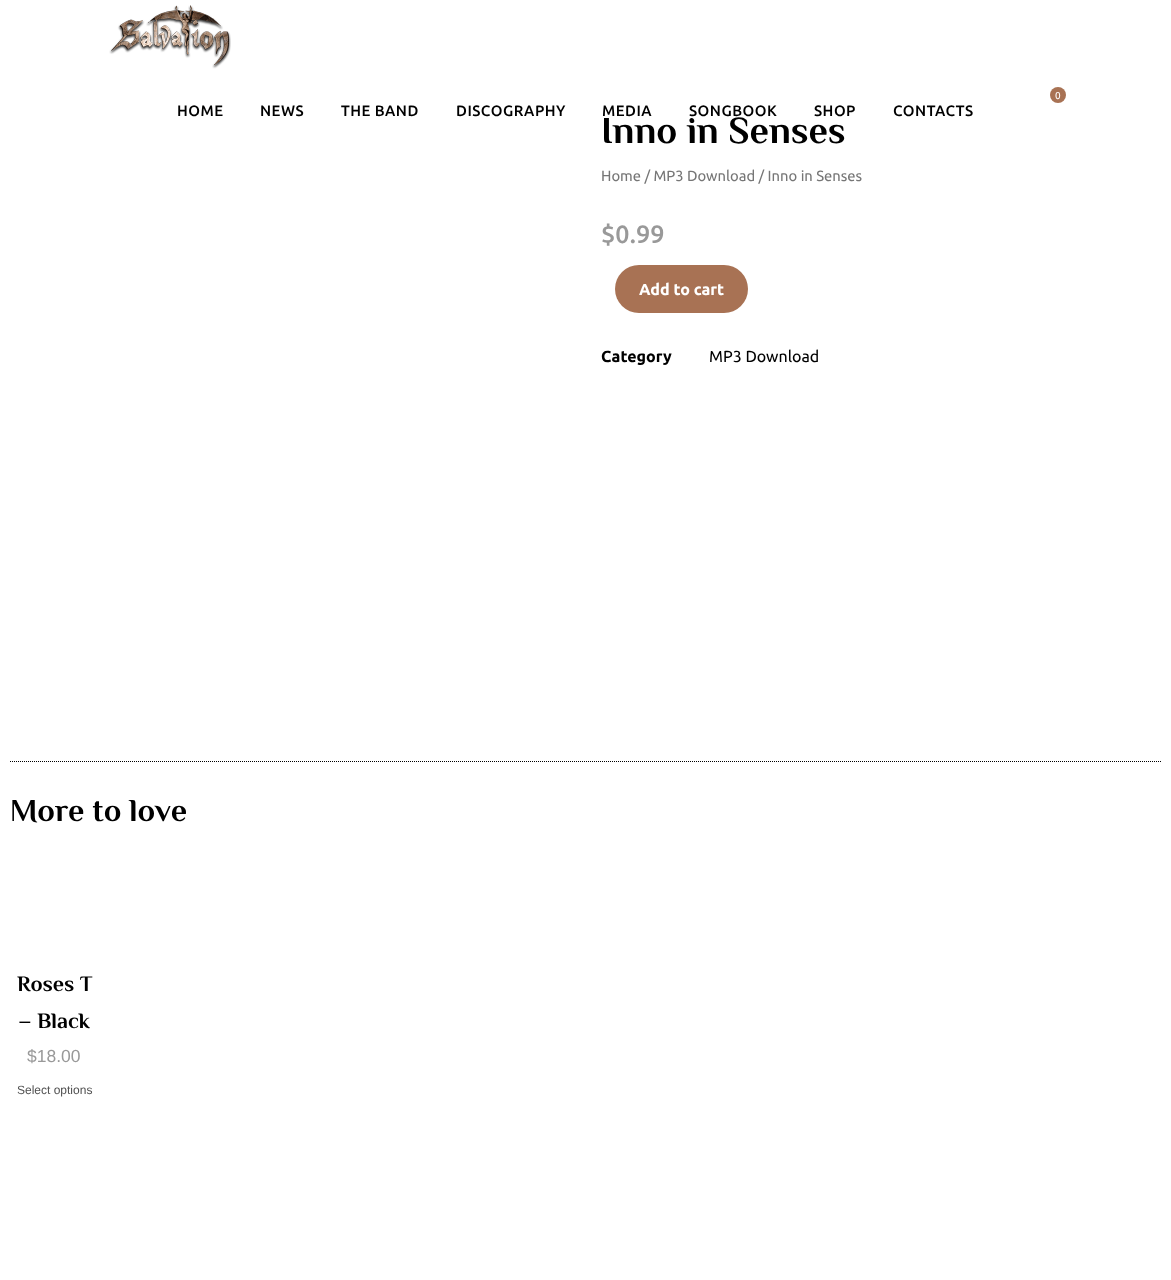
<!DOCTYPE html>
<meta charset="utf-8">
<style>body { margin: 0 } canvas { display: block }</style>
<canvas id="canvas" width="1171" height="1280"></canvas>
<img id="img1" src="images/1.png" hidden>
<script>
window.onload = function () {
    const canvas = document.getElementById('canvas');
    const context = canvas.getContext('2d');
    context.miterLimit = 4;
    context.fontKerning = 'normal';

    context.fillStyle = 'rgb(255, 255, 255)';
    context.fillRect(0, 0, 1171, 1280);
    context.drawImage(document.getElementById('img1'), 109, 5, 122, 64);
    context.fillStyle = 'rgb(168, 114, 84)';
    context.beginPath();
    context.arc(1058, 95, 8, 0, 2 * Math.PI);
    context.fill();
    context.beginPath();
    context.roundRect(615, 265, 133, 48, 24);
    context.fill();
    context.beginPath();
    context.moveTo(10, 761.5);
    context.lineTo(1161, 761.5);
    context.strokeStyle = 'rgb(0, 0, 0)';
    context.setLineDash([1, 1]);
    context.stroke();
    context.font = '10px Ubuntu';
    context.fillStyle = 'rgb(255, 255, 255)';
    context.fillText('0', 1055, 99);
    context.letterSpacing = '0.5px';
    context.font = '500 15px Ubuntu';
    context.fillStyle = 'rgb(0, 0, 0)';
    context.fillText('HOME', 177, 116);
    context.fillText('NEWS', 260, 116);
    context.fillText('THE BAND', 341, 116);
    context.fillText('DISCOGRAPHY', 456, 116);
    context.fillText('MEDIA', 602, 116);
    context.fillText('SONGBOOK', 689, 116);
    context.fillText('SHOP', 814, 116);
    context.fillText('CONTACTS', 893, 116);
    context.letterSpacing = '0px';
    context.font = 'bold 38px El Messiri';
    context.fillText('Inno in Senses', 601, 143);
    context.font = '14.75px Ubuntu';
    context.fillStyle = 'rgb(118, 118, 118)';
    context.fillText('Home / MP3 Download / Inno in Senses', 601, 181);
    context.font = '500 25px Ubuntu';
    context.fillStyle = 'rgb(153, 153, 153)';
    context.fillText('$0.99', 601, 243);
    context.font = 'bold 16px Ubuntu';
    context.fillStyle = 'rgb(255, 255, 255)';
    context.fillText('Add to cart', 639, 295);
    context.fillStyle = 'rgb(0, 0, 0)';
    context.fillText('Category', 601, 362);
    context.font = '16px Ubuntu';
    context.fillText('MP3 Download', 709, 362);
    context.font = 'bold 32px El Messiri';
    context.fillText('More to love', 10, 821);
    context.font = 'bold 22px El Messiri';
    context.fillText('Roses T', 17, 991);
    context.fillText('– Black', 18, 1028);
    context.font = '17.5px Liberation Sans';
    context.fillStyle = 'rgb(153, 153, 153)';
    context.fillText('$18.00', 27, 1062);
    context.font = '12px Liberation Sans';
    context.fillStyle = 'rgb(81, 81, 81)';
    context.fillText('Select options', 17, 1094);
};
</script>
